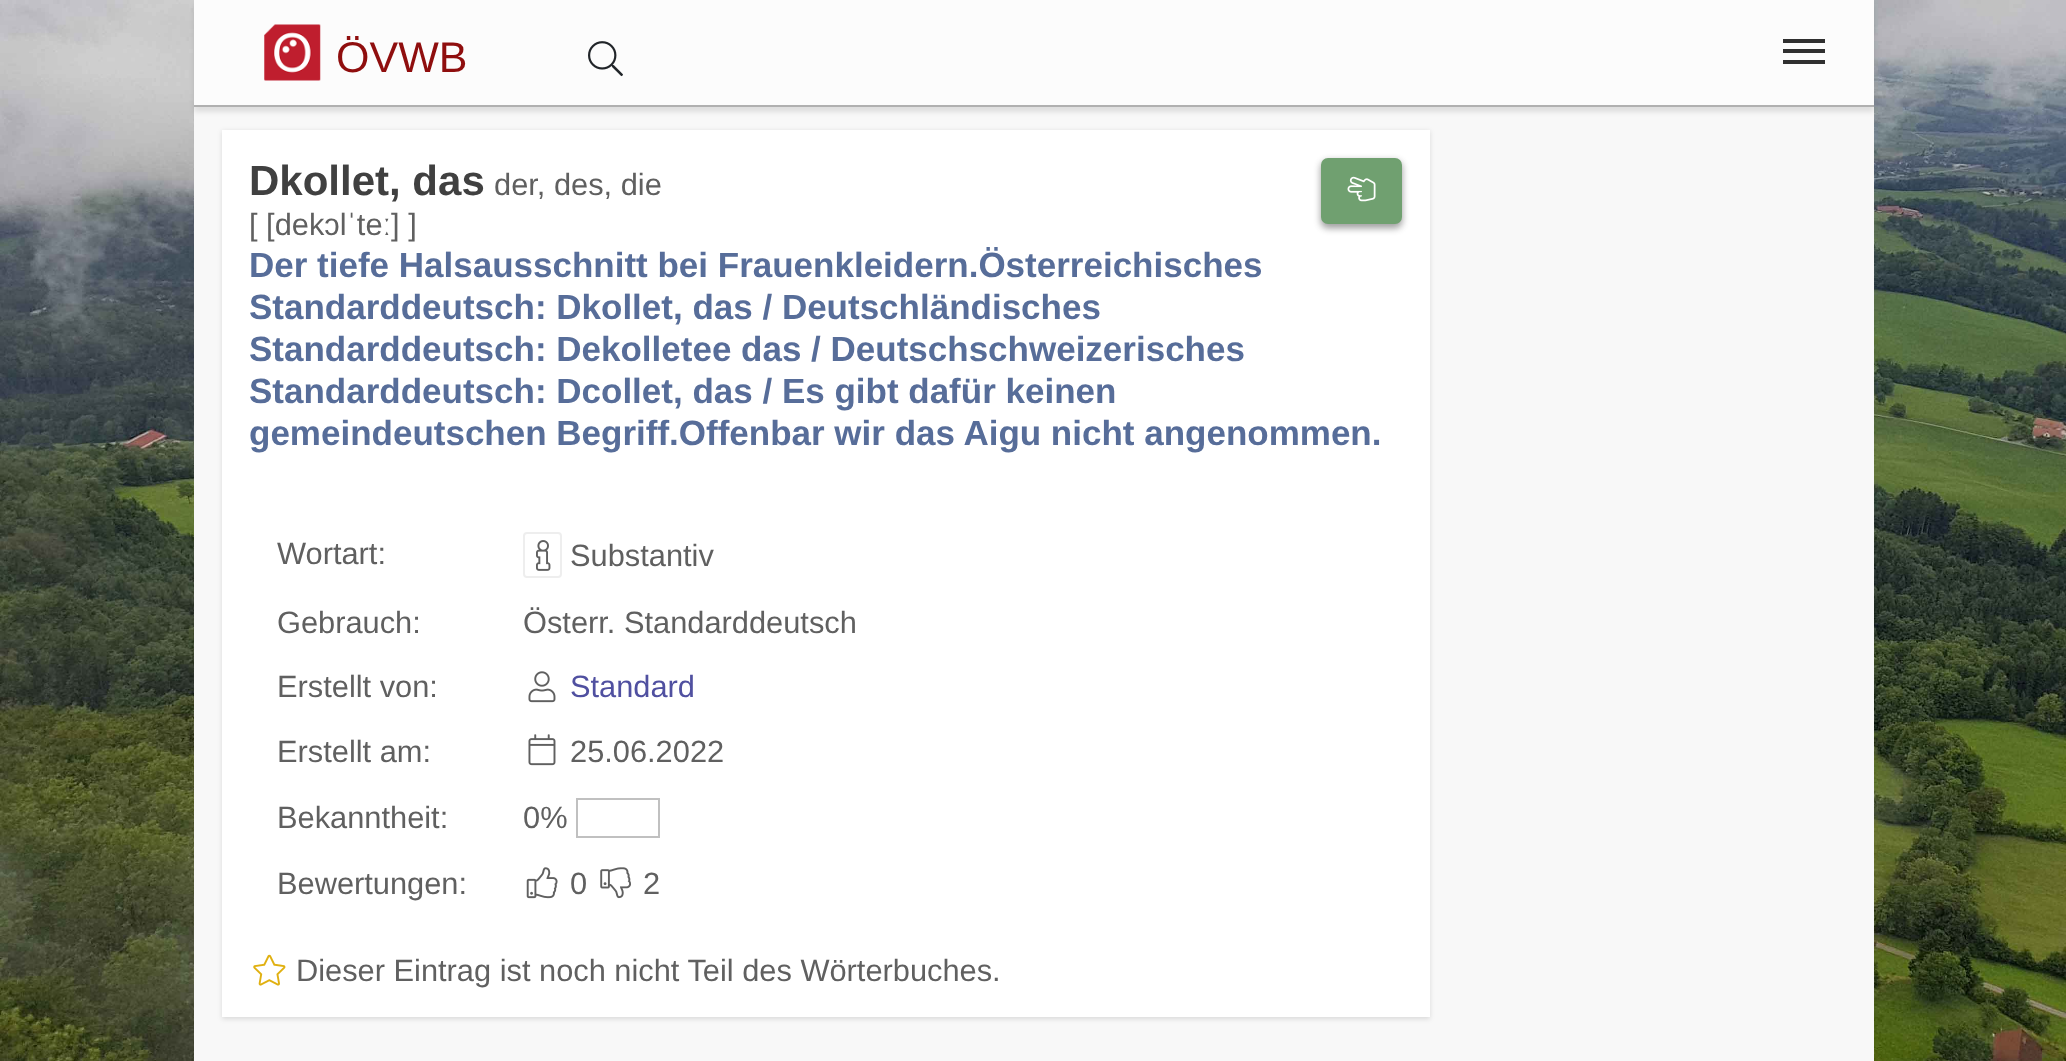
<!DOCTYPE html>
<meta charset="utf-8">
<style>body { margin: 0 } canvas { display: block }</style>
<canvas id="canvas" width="2066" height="1061"></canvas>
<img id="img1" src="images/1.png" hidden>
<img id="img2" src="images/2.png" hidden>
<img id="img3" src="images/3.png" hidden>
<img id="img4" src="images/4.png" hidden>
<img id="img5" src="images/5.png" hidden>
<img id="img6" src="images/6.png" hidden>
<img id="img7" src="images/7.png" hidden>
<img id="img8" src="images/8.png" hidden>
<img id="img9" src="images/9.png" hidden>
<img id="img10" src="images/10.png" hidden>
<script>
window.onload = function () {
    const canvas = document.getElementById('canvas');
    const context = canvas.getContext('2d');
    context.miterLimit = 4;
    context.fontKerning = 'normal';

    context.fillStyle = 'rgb(255, 255, 255)';
    context.fillRect(0, 0, 2066, 1061);
    context.drawImage(document.getElementById('img1'), 0, 0, 2066, 1061);
    context.fillStyle = 'rgb(248, 248, 248)';
    context.fillRect(194, 107, 1680, 954);
    context.fillStyle = 'rgba(0, 0, 0, 0.1)';
    context.filter = 'blur(2.5px)';
    context.beginPath();
    context.rect(194, 5, 1680, 107);
    context.fill();
    context.filter = 'none';
    context.fillStyle = 'rgb(252, 252, 252)';
    context.fillRect(194, 0, 1680, 105);
    context.fillStyle = 'rgb(176, 176, 176)';
    context.fillRect(194, 105, 1680, 2);
    context.drawImage(document.getElementById('img2'), 264, 24, 57, 57);
    context.drawImage(document.getElementById('img3'), 588, 41, 35, 36);
    context.fillStyle = 'rgb(48, 48, 48)';
    context.fillRect(1783, 49, 42, 4);
    context.fillRect(1783, 39, 42, 4);
    context.fillRect(1783, 60, 42, 4);
    context.fillStyle = 'rgba(0, 0, 0, 0.12)';
    context.filter = 'blur(2.5px)';
    context.beginPath();
    context.rect(222, 131, 1208, 888);
    context.fill();
    context.filter = 'none';
    context.fillStyle = 'rgb(255, 255, 255)';
    context.fillRect(222, 130, 1208, 887);
    context.fillStyle = 'rgba(0, 0, 0, 0.14)';
    context.filter = 'blur(3.5px)';
    context.beginPath();
    context.roundRect(1321, 161, 81, 67, 7);
    context.fill();
    context.filter = 'none';
    context.fillStyle = 'rgba(0, 0, 0, 0.28)';
    context.filter = 'blur(3.5px)';
    context.beginPath();
    context.roundRect(1321, 161, 81, 67, 7);
    context.fill();
    context.filter = 'none';
    context.fillStyle = 'rgb(112, 160, 112)';
    context.beginPath();
    context.roundRect(1322, 159, 79, 64, 6);
    context.fill();
    context.strokeStyle = 'rgb(112, 160, 112)';
    context.lineWidth = 2;
    context.stroke();
    context.drawImage(document.getElementById('img4'), 1347, 176, 29, 26);
    context.beginPath();
    context.roundRect(524, 533, 37, 44, 3);
    context.strokeStyle = 'rgb(238, 238, 238)';
    context.stroke();
    context.drawImage(document.getElementById('img5'), 536, 540, 15, 31);
    context.drawImage(document.getElementById('img6'), 528, 671, 28, 32);
    context.drawImage(document.getElementById('img7'), 528, 734, 28, 32);
    context.strokeStyle = 'rgb(192, 192, 192)';
    context.strokeRect(577, 799, 82, 38);
    context.drawImage(document.getElementById('img8'), 526, 867, 32, 32);
    context.drawImage(document.getElementById('img9'), 600, 867, 31, 32);
    context.drawImage(document.getElementById('img10'), 253, 954, 33, 32);
    context.font = '43px Liberation Sans';
    context.fillStyle = 'rgb(143, 14, 14)';
    context.fillText('ÖVWB', 336, 72);
    context.font = 'bold 42px Liberation Sans';
    context.fillStyle = 'rgb(64, 64, 64)';
    context.fillText('Dkollet, das', 249, 195);
    context.font = '30.8px Liberation Sans';
    context.fillStyle = 'rgb(96, 96, 96)';
    context.fillText('der, des, die', 494, 195);
    context.fillText('[ [dekɔlˈteː] ]', 249, 235);
    context.font = 'bold 35px Liberation Sans';
    context.fillStyle = 'rgb(87, 109, 153)';
    context.fillText('Der tiefe Halsausschnitt bei Frauenkleidern.Österreichisches', 249, 277);
    context.fillText('Standarddeutsch: Dkollet, das / Deutschländisches', 249, 319);
    context.fillText('Standarddeutsch: Dekolletee das / Deutschschweizerisches', 249, 361);
    context.fillText('Standarddeutsch: Dcollet, das / Es gibt dafür keinen', 249, 403);
    context.fillText('gemeindeutschen Begriff.Offenbar wir das Aigu nicht angenommen.', 249, 445);
    context.font = '30.8px Liberation Sans';
    context.fillStyle = 'rgb(96, 96, 96)';
    context.fillText('Wortart:', 277, 564);
    context.fillText('Substantiv', 570, 566);
    context.fillText('Gebrauch:', 277, 633);
    context.fillText('Österr. Standarddeutsch', 523, 633);
    context.fillText('Erstellt von:', 277, 697);
    context.fillStyle = 'rgb(80, 80, 160)';
    context.fillText('Standard', 570, 697);
    context.fillStyle = 'rgb(96, 96, 96)';
    context.fillText('Erstellt am:', 277, 762);
    context.fillText('25.06.2022', 570, 762);
    context.fillText('Bekanntheit:', 277, 828);
    context.fillText('0%', 523, 828);
    context.fillText('Bewertungen:', 277, 894);
    context.fillText('0', 570, 894);
    context.fillText('2', 643, 894);
    context.fillText('Dieser Eintrag ist noch nicht Teil des Wörterbuches.', 296, 981);
};
</script>
